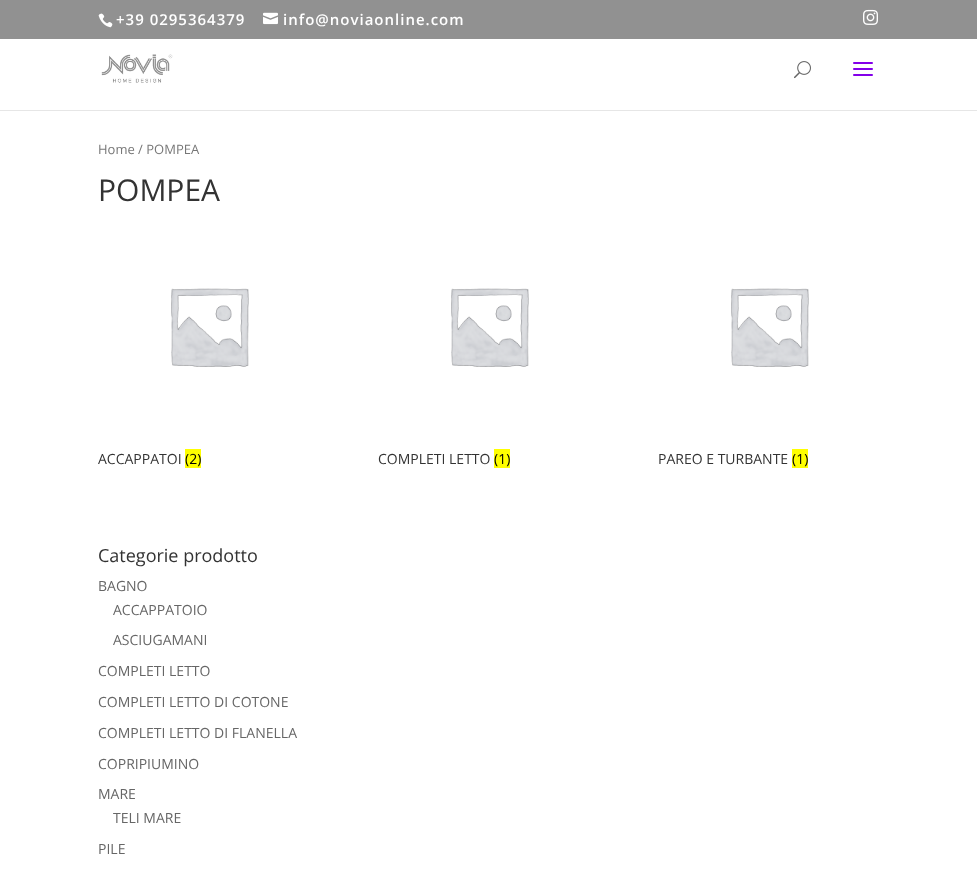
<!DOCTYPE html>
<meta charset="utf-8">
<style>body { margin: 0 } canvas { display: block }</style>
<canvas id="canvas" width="977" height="878"></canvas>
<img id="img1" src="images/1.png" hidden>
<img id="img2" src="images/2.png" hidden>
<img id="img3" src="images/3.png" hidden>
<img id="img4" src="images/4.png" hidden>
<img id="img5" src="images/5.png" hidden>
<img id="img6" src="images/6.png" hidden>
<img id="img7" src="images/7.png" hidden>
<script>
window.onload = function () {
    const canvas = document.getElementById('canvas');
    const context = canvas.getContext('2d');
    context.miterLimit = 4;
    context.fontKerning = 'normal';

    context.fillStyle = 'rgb(255, 255, 255)';
    context.fillRect(0, 0, 977, 878);
    context.fillStyle = 'rgb(145, 145, 145)';
    context.fillRect(0, 0, 977, 39);
    context.drawImage(document.getElementById('img1'), 98, 13, 15, 15);
    context.drawImage(document.getElementById('img2'), 263, 12, 15, 13);
    context.drawImage(document.getElementById('img3'), 863, 9, 15, 16);
    context.fillStyle = 'rgb(230, 230, 230)';
    context.fillRect(0, 110, 977, 1);
    context.drawImage(document.getElementById('img4'), 101, 54, 72, 29);
    context.drawImage(document.getElementById('img5'), 794, 61, 17, 18);
    context.drawImage(document.getElementById('img6'), 853, 62, 20, 14);
    context.drawImage(document.getElementById('img7'), 171, 288, 78, 79);
    context.fillStyle = 'rgb(255, 255, 0)';
    context.fillRect(185, 449, 16, 19);
    context.drawImage(document.getElementById('img7'), 451, 288, 78, 79);
    context.fillRect(494, 449, 16, 19);
    context.drawImage(document.getElementById('img7'), 731, 288, 78, 79);
    context.fillRect(792, 449, 16, 19);
    context.letterSpacing = '1px';
    context.font = '600 15px Open Sans';
    context.fillStyle = 'rgb(255, 255, 255)';
    context.fillText('+39 0295364379', 116, 25);
    context.fillText('info@noviaonline.com', 283, 25);
    context.letterSpacing = '0px';
    context.font = '13px Open Sans';
    context.fillStyle = 'rgb(119, 119, 119)';
    context.fillText('Home / POMPEA', 98, 154);
    context.font = '30px Open Sans';
    context.fillStyle = 'rgb(51, 51, 51)';
    context.fillText('POMPEA', 98, 201);
    context.font = '14px Open Sans';
    context.fillText('ACCAPPATOI', 98, 464);
    context.fillStyle = 'rgb(0, 0, 0)';
    context.fillText('(2)', 185, 464);
    context.fillStyle = 'rgb(51, 51, 51)';
    context.fillText('COMPLETI LETTO', 378, 464);
    context.fillStyle = 'rgb(0, 0, 0)';
    context.fillText('(1)', 494, 464);
    context.fillStyle = 'rgb(51, 51, 51)';
    context.fillText('PAREO E TURBANTE', 658, 464);
    context.fillStyle = 'rgb(0, 0, 0)';
    context.fillText('(1)', 792, 464);
    context.font = '18px Open Sans';
    context.fillStyle = 'rgb(51, 51, 51)';
    context.fillText('Categorie prodotto', 98, 562);
    context.font = '14px Open Sans';
    context.fillStyle = 'rgb(102, 102, 102)';
    context.fillText('BAGNO', 98, 591);
    context.fillText('ACCAPPATOIO', 113, 615);
    context.fillText('ASCIUGAMANI', 113, 645);
    context.fillText('COMPLETI LETTO', 98, 676);
    context.fillText('COMPLETI LETTO DI COTONE', 98, 707);
    context.fillText('COMPLETI LETTO DI FLANELLA', 98, 738);
    context.fillText('COPRIPIUMINO', 98, 769);
    context.fillText('MARE', 98, 799);
    context.fillText('TELI MARE', 113, 823);
    context.fillText('PILE', 98, 854);
};
</script>
